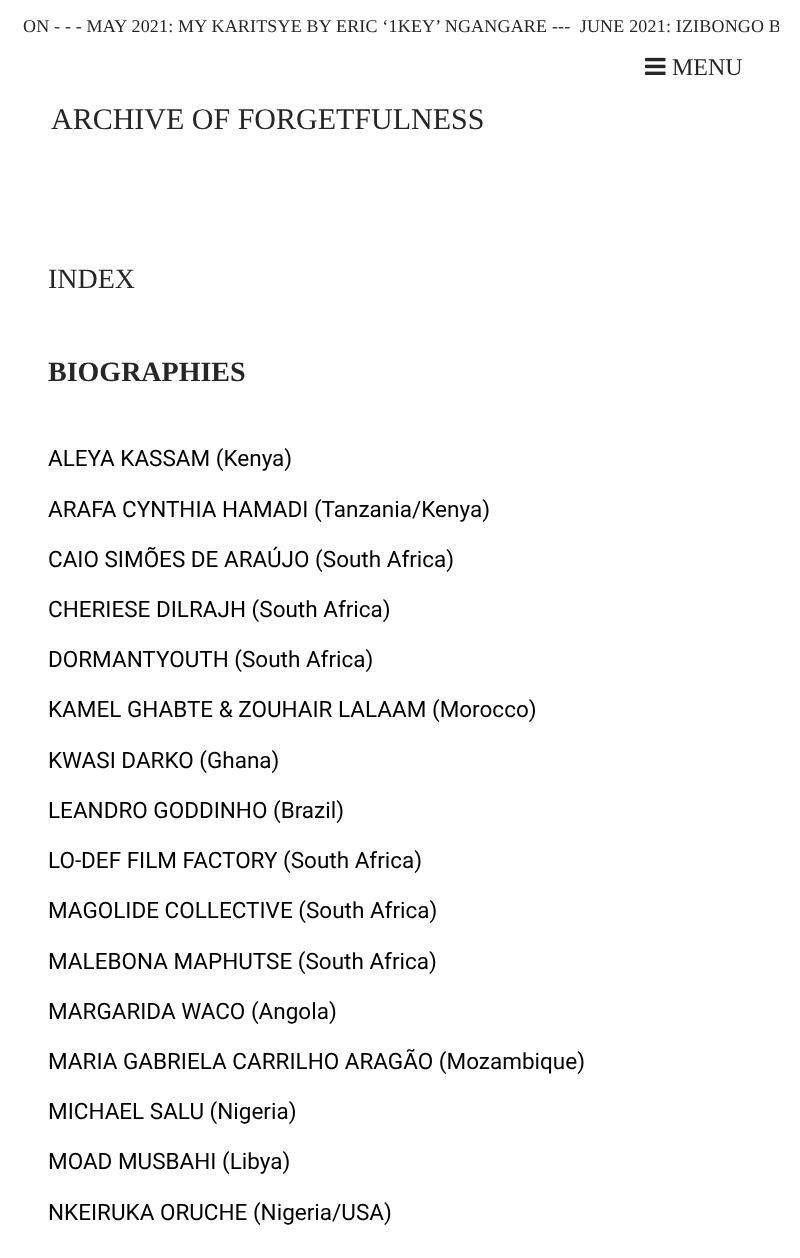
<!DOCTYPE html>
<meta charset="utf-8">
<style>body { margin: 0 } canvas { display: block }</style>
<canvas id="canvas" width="800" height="1258"></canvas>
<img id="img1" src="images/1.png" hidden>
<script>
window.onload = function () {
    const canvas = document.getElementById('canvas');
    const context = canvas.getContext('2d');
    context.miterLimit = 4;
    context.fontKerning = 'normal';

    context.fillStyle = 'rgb(255, 255, 255)';
    context.fillRect(0, 0, 800, 1258);
    context.drawImage(document.getElementById('img1'), 645, 57, 21, 18);
    context.save();
    context.beginPath();
    context.rect(23, 0, 756, 54);
    context.clip();
    context.letterSpacing = '0.18px';
    context.font = '18px Liberation Serif';
    context.fillStyle = 'rgb(38, 38, 38)';
    context.fillText('ON - - - MAY 2021: MY KARITSYE BY ERIC ‘1KEY’ NGANGARE ---  JUNE 2021: IZIBONGO B', 23, 32);
    context.restore();
    context.font = '24px Liberation Serif';
    context.fillStyle = 'rgb(38, 38, 38)';
    context.fillText('MENU', 672, 75);
    context.font = '30px Liberation Serif';
    context.fillText('ARCHIVE OF FORGETFULNESS', 51, 129);
    context.font = '28px Liberation Serif';
    context.fillText('INDEX', 48, 288);
    context.font = 'bold 28px Liberation Serif';
    context.fillText('BIOGRAPHIES', 48, 381);
    context.font = '22.5px Roboto';
    context.fillStyle = 'rgb(0, 0, 0)';
    context.fillText('ALEYA KASSAM (Kenya)', 48, 466);
    context.fillText('ARAFA CYNTHIA HAMADI (Tanzania/Kenya)', 48, 517);
    context.fillText('CAIO SIMÕES DE ARAÚJO (South Africa)', 48, 567);
    context.fillText('CHERIESE DILRAJH (South Africa)', 48, 617);
    context.fillText('DORMANTYOUTH (South Africa)', 48, 667);
    context.fillText('KAMEL GHABTE & ZOUHAIR LALAAM (Morocco)', 48, 717);
    context.fillText('KWASI DARKO (Ghana)', 48, 768);
    context.fillText('LEANDRO GODDINHO (Brazil)', 48, 818);
    context.fillText('LO-DEF FILM FACTORY (South Africa)', 48, 868);
    context.fillText('MAGOLIDE COLLECTIVE (South Africa)', 48, 918);
    context.fillText('MALEBONA MAPHUTSE (South Africa)', 48, 969);
    context.fillText('MARGARIDA WACO (Angola)', 48, 1019);
    context.fillText('MARIA GABRIELA CARRILHO ARAGÃO (Mozambique)', 48, 1069);
    context.fillText('MICHAEL SALU (Nigeria)', 48, 1119);
    context.fillText('MOAD MUSBAHI (Libya)', 48, 1169);
    context.fillText('NKEIRUKA ORUCHE (Nigeria/USA)', 48, 1220);
};
</script>
